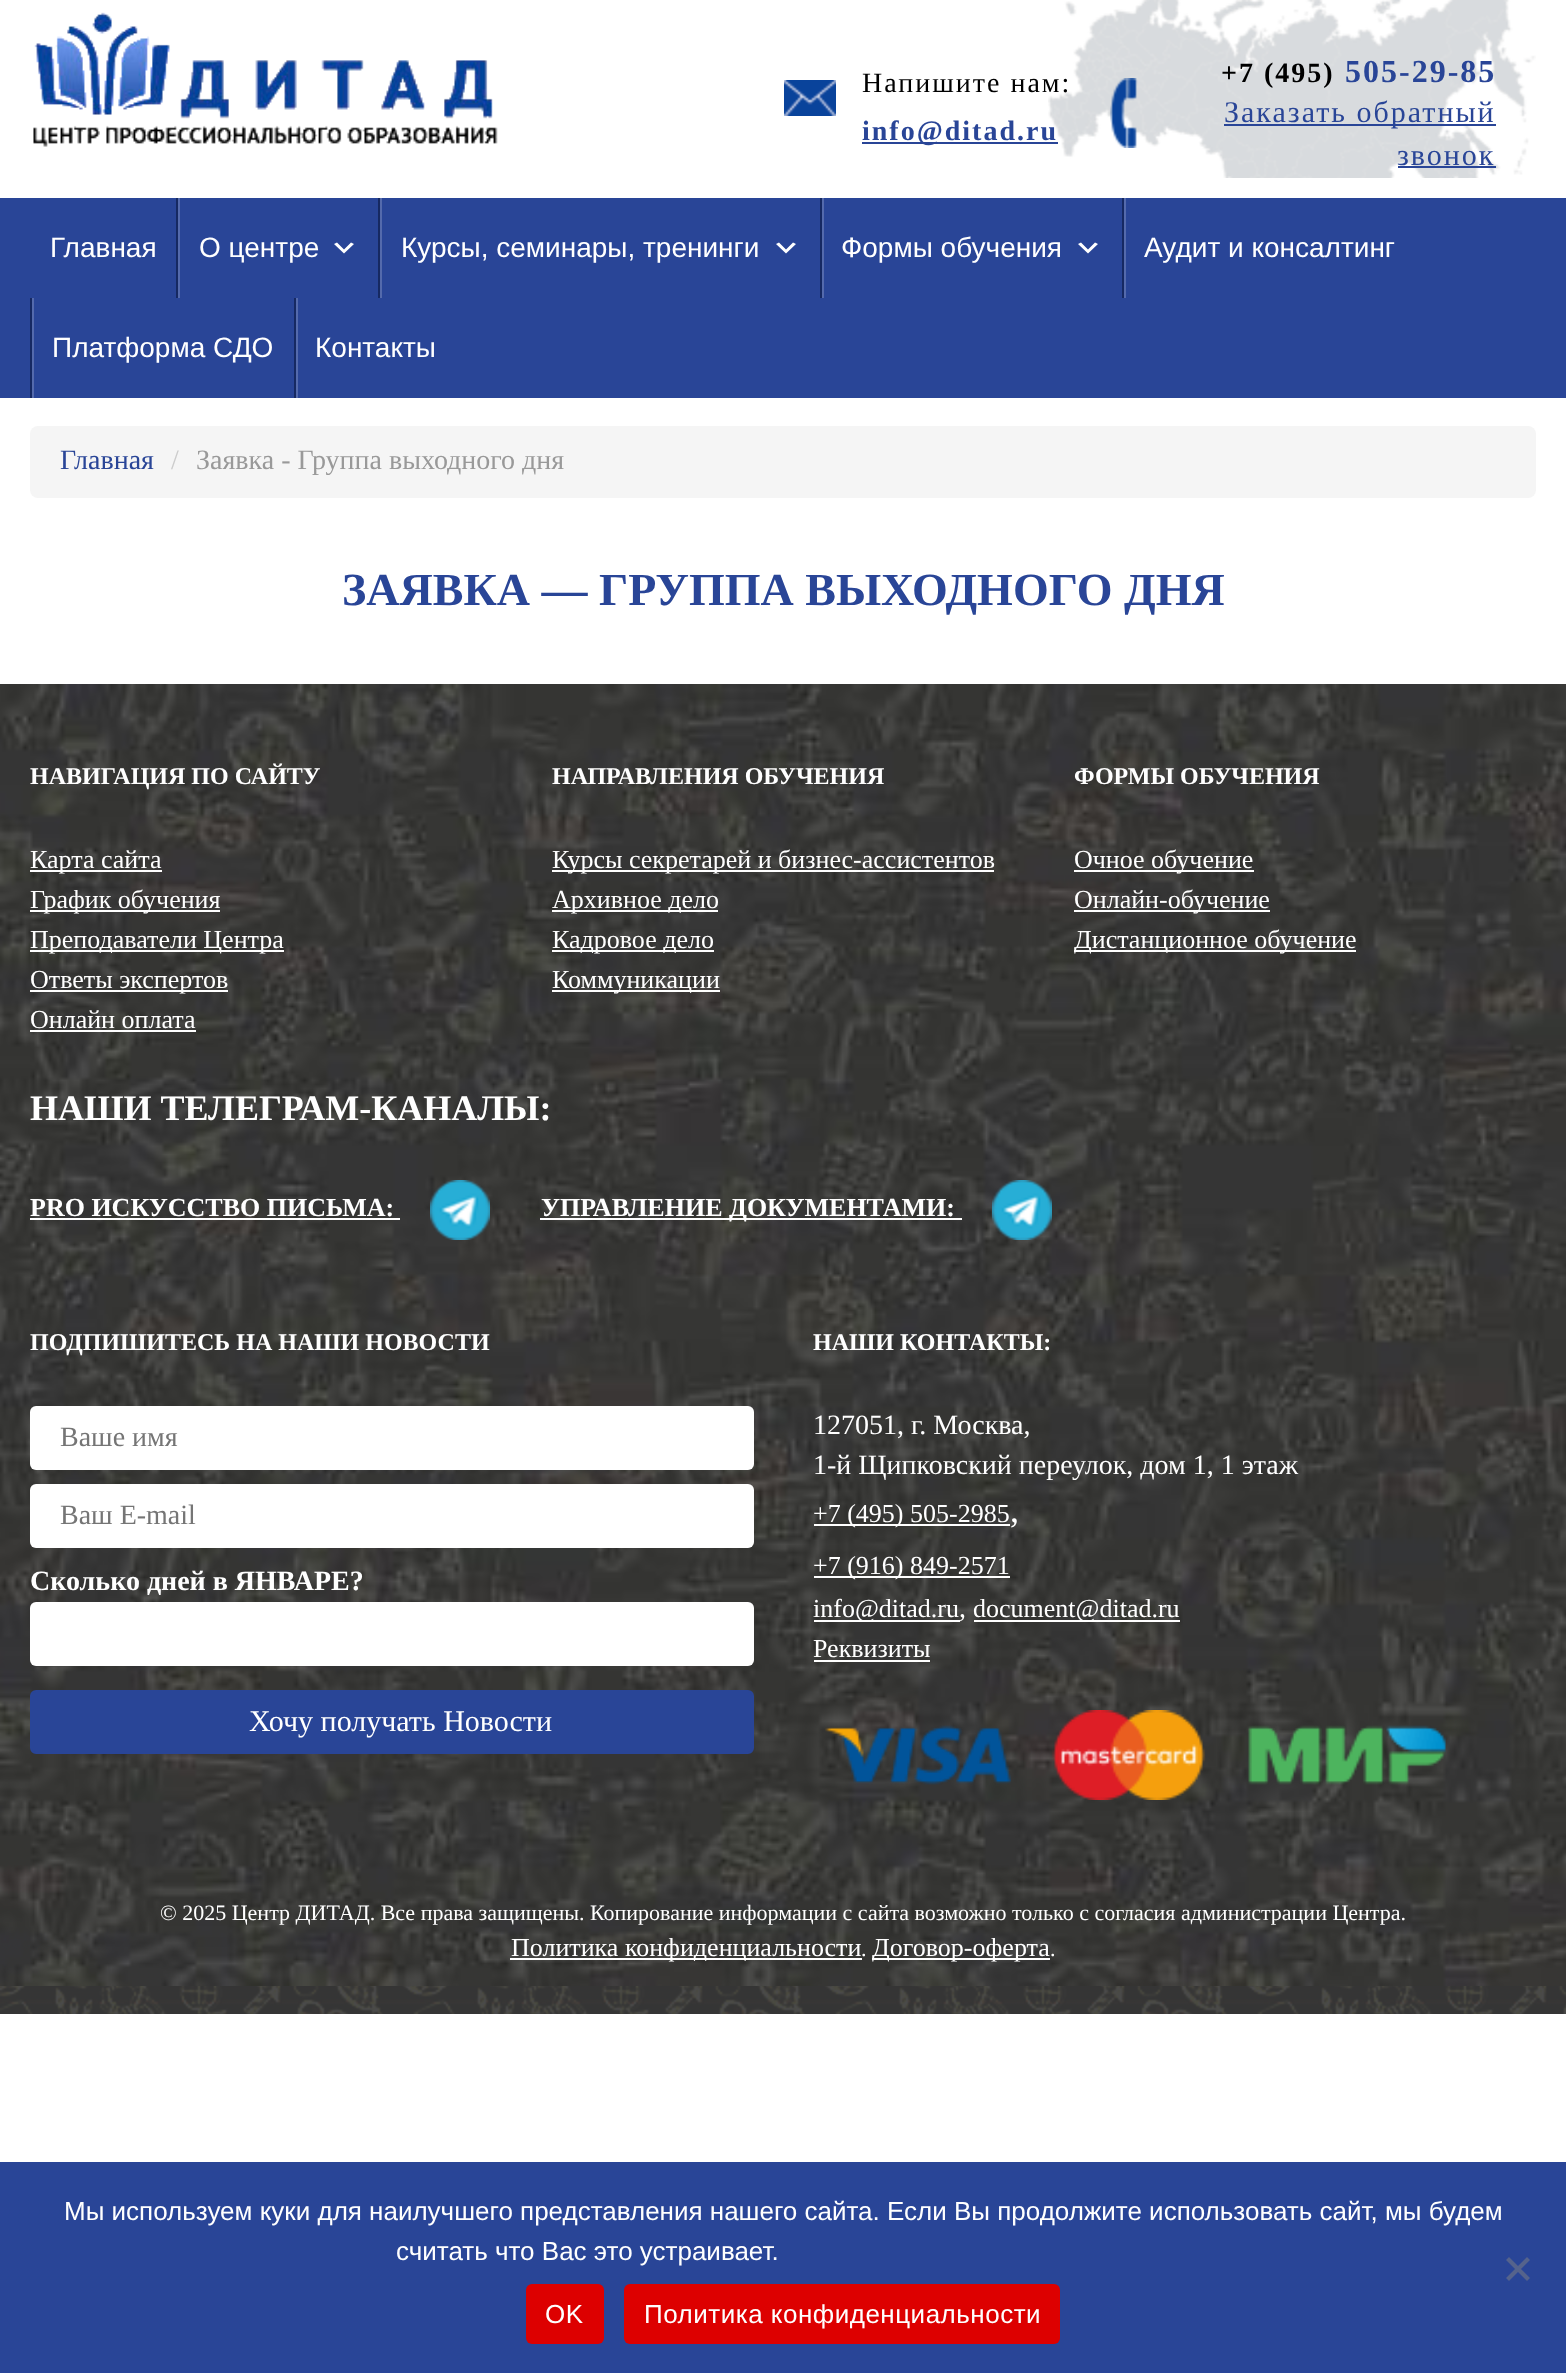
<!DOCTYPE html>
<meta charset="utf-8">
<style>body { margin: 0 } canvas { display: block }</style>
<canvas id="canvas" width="1566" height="2373"></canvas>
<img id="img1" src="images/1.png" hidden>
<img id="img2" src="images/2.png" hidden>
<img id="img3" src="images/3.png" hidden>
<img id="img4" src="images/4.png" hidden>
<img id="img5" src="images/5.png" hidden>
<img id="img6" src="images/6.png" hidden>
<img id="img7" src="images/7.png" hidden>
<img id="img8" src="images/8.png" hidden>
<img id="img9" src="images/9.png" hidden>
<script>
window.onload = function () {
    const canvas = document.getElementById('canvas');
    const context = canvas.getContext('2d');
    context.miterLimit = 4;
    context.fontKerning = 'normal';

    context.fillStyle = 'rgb(255, 255, 255)';
    context.fillRect(0, 0, 1566, 2373);
    context.drawImage(document.getElementById('img1'), 1048, 0, 488, 178);
    context.drawImage(document.getElementById('img2'), 33, 12, 465, 135);
    context.drawImage(document.getElementById('img3'), 784, 80, 52, 36);
    context.fillStyle = 'rgb(41, 69, 151)';
    context.fillRect(862, 142, 196, 2);
    context.drawImage(document.getElementById('img4'), 1110, 78, 28, 70);
    context.fillRect(1224, 124, 272, 2);
    context.fillRect(1398, 166, 98, 2);
    context.fillRect(0, 198, 1566, 200);
    context.fillStyle = 'rgb(84, 106, 172)';
    context.fillRect(178, 198, 2, 100);
    context.fillStyle = 'rgb(22, 41, 98)';
    context.fillRect(176, 198, 2, 100);
    context.fillStyle = 'rgb(255, 255, 255)';
    context.beginPath();
    context.moveTo(337, 242.5);
    context.lineTo(344, 249.5);
    context.lineTo(351, 242.5);
    context.lineTo(354, 244);
    context.lineTo(344, 253.5);
    context.lineTo(334, 244);
    context.closePath();
    context.fill();
    context.fillStyle = 'rgb(84, 106, 172)';
    context.fillRect(380, 198, 2, 100);
    context.fillStyle = 'rgb(22, 41, 98)';
    context.fillRect(378, 198, 2, 100);
    context.fillStyle = 'rgb(255, 255, 255)';
    context.beginPath();
    context.moveTo(779, 242.5);
    context.lineTo(786, 249.5);
    context.lineTo(793, 242.5);
    context.lineTo(796, 244);
    context.lineTo(786, 253.5);
    context.lineTo(776, 244);
    context.closePath();
    context.fill();
    context.fillStyle = 'rgb(84, 106, 172)';
    context.fillRect(822, 198, 2, 100);
    context.fillStyle = 'rgb(22, 41, 98)';
    context.fillRect(820, 198, 2, 100);
    context.fillStyle = 'rgb(255, 255, 255)';
    context.beginPath();
    context.moveTo(1081, 242.5);
    context.lineTo(1088, 249.5);
    context.lineTo(1095, 242.5);
    context.lineTo(1098, 244);
    context.lineTo(1088, 253.5);
    context.lineTo(1078, 244);
    context.closePath();
    context.fill();
    context.fillStyle = 'rgb(84, 106, 172)';
    context.fillRect(1124, 198, 2, 100);
    context.fillStyle = 'rgb(22, 41, 98)';
    context.fillRect(1122, 198, 2, 100);
    context.fillStyle = 'rgb(84, 106, 172)';
    context.fillRect(32, 298, 2, 100);
    context.fillStyle = 'rgb(22, 41, 98)';
    context.fillRect(30, 298, 2, 100);
    context.fillStyle = 'rgb(84, 106, 172)';
    context.fillRect(296, 298, 2, 100);
    context.fillStyle = 'rgb(22, 41, 98)';
    context.fillRect(294, 298, 2, 100);
    context.fillStyle = 'rgb(245, 245, 245)';
    context.beginPath();
    context.roundRect(30, 426, 1506, 72, 8);
    context.fill();
    context.drawImage(document.getElementById('img5'), 0, 1986, 1566, 28);
    context.drawImage(document.getElementById('img6'), 0, 684, 1566, 1302);
    context.fillStyle = 'rgb(255, 255, 255)';
    context.fillRect(30, 870, 132, 2);
    context.fillRect(30, 910, 190, 2);
    context.fillRect(30, 950, 254, 2);
    context.fillRect(30, 990, 198, 2);
    context.fillRect(30, 1030, 166, 2);
    context.fillRect(552, 870, 442, 2);
    context.fillRect(552, 910, 166, 2);
    context.fillRect(552, 950, 162, 2);
    context.fillRect(552, 990, 168, 2);
    context.fillRect(1074, 870, 180, 2);
    context.fillRect(1074, 910, 196, 2);
    context.fillRect(1074, 950, 282, 2);
    context.fillRect(30, 1218, 370, 2);
    context.drawImage(document.getElementById('img7'), 430, 1180, 60, 60);
    context.fillRect(540, 1218, 422, 2);
    context.drawImage(document.getElementById('img8'), 992, 1180, 60, 60);
    context.beginPath();
    context.roundRect(30, 1406, 724, 64, 6);
    context.fill();
    context.beginPath();
    context.roundRect(30, 1484, 724, 64, 6);
    context.fill();
    context.beginPath();
    context.roundRect(30, 1602, 724, 64, 6);
    context.fill();
    context.fillStyle = 'rgb(41, 69, 151)';
    context.beginPath();
    context.roundRect(31, 1691, 722, 62, 5);
    context.fill();
    context.strokeStyle = 'rgb(41, 69, 151)';
    context.lineWidth = 2;
    context.stroke();
    context.fillStyle = 'rgb(255, 255, 255)';
    context.fillRect(814, 1524, 196, 2);
    context.fillRect(814, 1576, 196, 2);
    context.fillRect(814, 1620, 146, 2);
    context.fillRect(974, 1620, 206, 2);
    context.fillRect(814, 1660, 116, 2);
    context.drawImage(document.getElementById('img9'), 825, 1710, 621, 90);
    context.fillRect(510, 1958, 352, 2);
    context.fillRect(872, 1958, 178, 2);
    context.fillStyle = 'rgb(41, 69, 151)';
    context.fillRect(0, 2162, 1566, 211);
    context.fillStyle = 'rgb(85, 99, 140)';
    context.beginPath();
    context.moveTo(1527, 2257);
    context.lineTo(1530, 2260);
    context.lineTo(1509, 2281);
    context.lineTo(1506, 2278);
    context.closePath();
    context.fill();
    context.beginPath();
    context.moveTo(1506, 2260);
    context.lineTo(1509, 2257);
    context.lineTo(1530, 2278);
    context.lineTo(1527, 2281);
    context.closePath();
    context.fill();
    context.fillStyle = 'rgb(221, 0, 0)';
    context.beginPath();
    context.roundRect(526, 2284, 78, 60, 6);
    context.fill();
    context.beginPath();
    context.roundRect(624, 2284, 436, 60, 6);
    context.fill();
    context.letterSpacing = '2px';
    context.font = '28px Liberation Serif';
    context.fillStyle = 'rgb(0, 0, 0)';
    context.fillText('Напишите нам:', 862, 92);
    context.font = 'bold 28px Liberation Serif';
    context.fillStyle = 'rgb(41, 69, 151)';
    context.fillText('info@ditad.ru', 862, 140);
    context.fillStyle = 'rgb(0, 0, 0)';
    context.fillText('+7 (495)', 1221, 82);
    context.font = 'bold 32px Liberation Serif';
    context.fillStyle = 'rgb(41, 69, 151)';
    context.fillText('505-29-85', 1345, 82);
    context.font = '30px Liberation Serif';
    context.fillText('Заказать обратный', 1224, 122);
    context.fillText('звонок', 1397, 165);
    context.letterSpacing = '0px';
    context.font = '28px Liberation Sans';
    context.fillStyle = 'rgb(255, 255, 255)';
    context.fillText('Главная', 50, 257);
    context.fillText('О центре', 199, 257);
    context.fillText('Курсы, семинары, тренинги', 401, 257);
    context.fillText('Формы обучения', 841, 257);
    context.fillText('Аудит и консалтинг', 1144, 257);
    context.fillText('Платформа СДО', 52, 357);
    context.fillText('Контакты', 315, 357);
    context.font = '28px Liberation Serif';
    context.fillStyle = 'rgb(41, 69, 151)';
    context.fillText('Главная', 60, 469);
    context.fillStyle = 'rgb(204, 204, 204)';
    context.fillText('/', 171, 469);
    context.fillStyle = 'rgb(153, 153, 153)';
    context.fillText('Заявка - Группа выходного дня', 196, 469);
    context.font = 'bold 46px Liberation Serif';
    context.fillStyle = 'rgb(41, 69, 151)';
    context.fillText('ЗАЯВКА — ГРУППА ВЫХОДНОГО ДНЯ', 342, 605);
    context.font = 'bold 24px Liberation Serif';
    context.fillStyle = 'rgb(255, 255, 255)';
    context.fillText('НАВИГАЦИЯ ПО САЙТУ', 30, 784);
    context.font = '26px Liberation Serif';
    context.fillText('Карта сайта', 30, 868);
    context.fillText('График обучения', 30, 908);
    context.fillText('Преподаватели Центра', 30, 948);
    context.fillText('Ответы экспертов', 30, 988);
    context.fillText('Онлайн оплата', 30, 1028);
    context.font = 'bold 24px Liberation Serif';
    context.fillText('НАПРАВЛЕНИЯ ОБУЧЕНИЯ', 552, 784);
    context.font = '26px Liberation Serif';
    context.fillText('Курсы секретарей и бизнес-ассистентов', 552, 868);
    context.fillText('Архивное дело', 552, 908);
    context.fillText('Кадровое дело', 552, 948);
    context.fillText('Коммуникации', 552, 988);
    context.font = 'bold 24px Liberation Serif';
    context.fillText('ФОРМЫ ОБУЧЕНИЯ', 1074, 784);
    context.font = '26px Liberation Serif';
    context.fillText('Очное обучение', 1074, 868);
    context.fillText('Онлайн-обучение', 1074, 908);
    context.fillText('Дистанционное обучение', 1074, 948);
    context.font = 'bold 36px Liberation Serif';
    context.fillText('НАШИ ТЕЛЕГРАМ-КАНАЛЫ:', 30, 1120);
    context.font = 'bold 26px Liberation Serif';
    context.fillText('PRO ИСКУССТВО ПИСЬМА:', 30, 1216);
    context.fillText('УПРАВЛЕНИЕ ДОКУМЕНТАМИ:', 541, 1216);
    context.font = 'bold 24px Liberation Serif';
    context.fillText('ПОДПИШИТЕСЬ НА НАШИ НОВОСТИ', 30, 1350);
    context.font = '28px Liberation Serif';
    context.fillStyle = 'rgb(117, 117, 117)';
    context.fillText('Ваше имя', 60, 1446);
    context.fillText('Ваш E-mail', 60, 1524);
    context.font = 'bold 28px Liberation Serif';
    context.fillStyle = 'rgb(255, 255, 255)';
    context.fillText('Сколько дней в ЯНВАРЕ?', 30, 1590);
    context.font = '30px Liberation Serif';
    context.fillText('Хочу получать Новости', 249, 1731);
    context.font = 'bold 24px Liberation Serif';
    context.fillText('НАШИ КОНТАКТЫ:', 813, 1350);
    context.font = '28px Liberation Serif';
    context.fillText('127051, г. Москва,', 813, 1434);
    context.fillText('1-й Щипковский переулок, дом 1, 1 этаж', 813, 1474);
    context.font = '26px Liberation Serif';
    context.fillText('+7 (495) 505-2985', 813, 1522);
    context.font = '36px Liberation Serif';
    context.fillText(',', 1010, 1522);
    context.font = '26px Liberation Serif';
    context.fillText('+7 (916) 849-2571', 813, 1574);
    context.fillText('info@ditad.ru', 813, 1617);
    context.font = '28px Liberation Serif';
    context.fillText(',', 959, 1617);
    context.font = '26px Liberation Serif';
    context.fillText('document@ditad.ru', 973, 1617);
    context.fillText('Реквизиты', 813, 1657);
    context.font = '22px Liberation Serif';
    context.fillText('© 2025 Центр ДИТАД. Все права защищены. Копирование информации с сайта возможно только с согласия администрации Центра.', 160, 1920);
    context.font = '26px Liberation Serif';
    context.fillText('Политика конфиденциальности', 511, 1956);
    context.font = '22px Liberation Serif';
    context.fillText('.', 861, 1956);
    context.font = '26px Liberation Serif';
    context.fillText('Договор-оферта', 872, 1956);
    context.font = '22px Liberation Serif';
    context.fillText('.', 1050, 1956);
    context.font = '26px Liberation Sans';
    context.fillText('Мы используем куки для наилучшего представления нашего сайта. Если Вы продолжите использовать сайт, мы будем', 64, 2220);
    context.fillText('считать что Вас это устраивает.', 396, 2260);
    context.letterSpacing = '0.5px';
    context.fillText('OK', 545, 2323);
    context.fillText('Политика конфиденциальности', 644, 2323);
};
</script>
